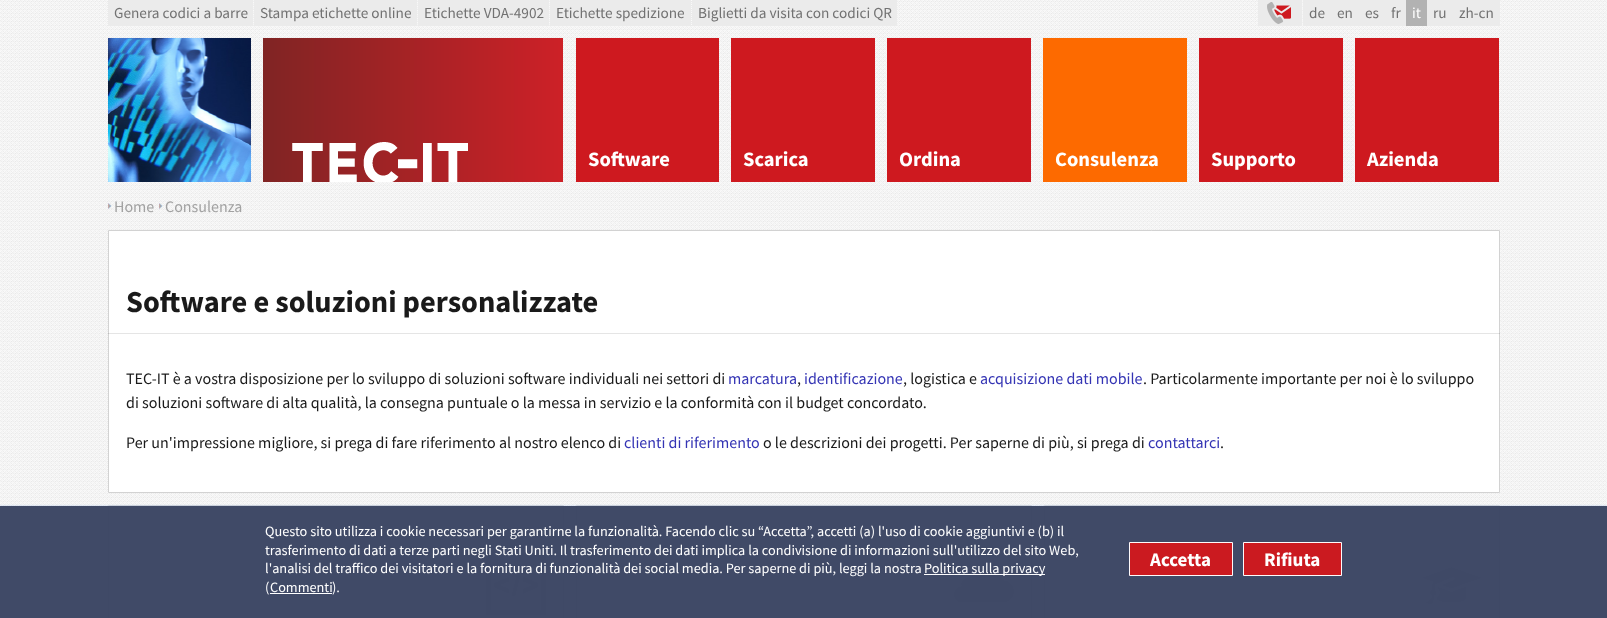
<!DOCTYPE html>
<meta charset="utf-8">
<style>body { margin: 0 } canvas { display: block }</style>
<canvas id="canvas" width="1607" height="618"></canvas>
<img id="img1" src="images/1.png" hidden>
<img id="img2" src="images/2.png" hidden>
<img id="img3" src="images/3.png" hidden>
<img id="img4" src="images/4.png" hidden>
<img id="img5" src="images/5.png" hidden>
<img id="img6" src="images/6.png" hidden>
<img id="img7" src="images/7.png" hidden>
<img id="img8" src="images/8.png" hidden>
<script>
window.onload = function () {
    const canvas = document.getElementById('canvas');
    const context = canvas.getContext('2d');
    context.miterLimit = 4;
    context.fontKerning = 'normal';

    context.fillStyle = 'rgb(255, 255, 255)';
    context.fillRect(0, 0, 1607, 618);
    context.drawImage(document.getElementById('img1'), 0, 0, 1607, 618);
    context.fillStyle = 'rgb(235, 235, 235)';
    context.fillRect(108, 0, 145, 26);
    context.fillRect(254, 0, 163, 26);
    context.fillRect(418, 0, 131, 26);
    context.fillRect(550, 0, 141, 26);
    context.fillRect(692, 0, 205, 26);
    context.fillRect(1258, 0, 44, 26);
    context.drawImage(document.getElementById('img2'), 1267, 2, 24, 22);
    context.fillRect(1303, 0, 103, 26);
    context.fillStyle = 'rgb(178, 178, 178)';
    context.fillRect(1406, 0, 21, 26);
    context.fillStyle = 'rgb(235, 235, 235)';
    context.fillRect(1427, 0, 73, 26);
    context.drawImage(document.getElementById('img3'), 108, 38, 143, 144);
    context.drawImage(document.getElementById('img4'), 263, 38, 300, 144);
    context.fillStyle = 'rgb(206, 25, 31)';
    context.fillRect(576, 38, 143, 144);
    context.fillRect(731, 38, 144, 144);
    context.fillRect(887, 38, 144, 144);
    context.fillStyle = 'rgb(253, 106, 0)';
    context.fillRect(1043, 38, 144, 144);
    context.fillStyle = 'rgb(206, 25, 31)';
    context.fillRect(1199, 38, 144, 144);
    context.fillRect(1355, 38, 144, 144);
    context.drawImage(document.getElementById('img5'), 108, 203, 4, 6);
    context.drawImage(document.getElementById('img5'), 159, 203, 4, 6);
    context.fillStyle = 'rgb(255, 255, 255)';
    context.beginPath();
    context.rect(108.5, 230.5, 1391, 262);
    context.fill();
    context.strokeStyle = 'rgb(210, 210, 210)';
    context.stroke();
    context.fillStyle = 'rgba(0, 0, 0, 0.1)';
    context.fillRect(108, 333, 1392, 1);
    context.fillStyle = 'rgb(255, 255, 255)';
    context.beginPath();
    context.rect(108.5, 505.5, 455, 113);
    context.fill();
    context.stroke();
    context.drawImage(document.getElementById('img6'), 486, 555, 60, 60);
    context.beginPath();
    context.rect(576.5, 505.5, 455, 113);
    context.fill();
    context.stroke();
    context.drawImage(document.getElementById('img7'), 954, 567, 60, 36);
    context.beginPath();
    context.rect(1044.5, 505.5, 455, 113);
    context.fill();
    context.stroke();
    context.drawImage(document.getElementById('img8'), 1422, 567, 60, 38);
    context.save();
    context.beginPath();
    context.rect(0, 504, 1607, 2);
    context.clip();
    context.fillStyle = 'rgba(187, 204, 238, 0.98)';
    context.filter = 'blur(1px)';
    context.beginPath();
    context.rect(0, 506, 1607, 112);
    context.fill();
    context.filter = 'none';
    context.restore();
    context.fillStyle = 'rgba(60, 70, 100, 0.98)';
    context.fillRect(0, 506, 1607, 112);
    context.fillStyle = 'rgb(251, 251, 252)';
    context.fillRect(924, 574, 121, 1);
    context.fillStyle = 'rgb(255, 255, 255)';
    context.fillRect(270, 593, 62, 1);
    context.fillStyle = 'rgba(206, 25, 31, 0.98)';
    context.beginPath();
    context.rect(1129.5, 542.5, 103, 33);
    context.fill();
    context.strokeStyle = 'rgb(254, 250, 251)';
    context.stroke();
    context.beginPath();
    context.rect(1243.5, 542.5, 98, 33);
    context.fill();
    context.stroke();
    context.font = '15.25px Source Sans Pro';
    context.fillStyle = 'rgb(114, 114, 114)';
    context.fillText('Genera codici a barre', 114, 18);
    context.fillText('Stampa etichette online', 260, 18);
    context.fillText('Etichette VDA-4902', 424, 18);
    context.fillText('Etichette spedizione', 556, 18);
    context.fillText('Biglietti da visita con codici QR', 698, 18);
    context.fillText('de', 1309, 18);
    context.fillText('en', 1337, 18);
    context.fillText('es', 1365, 18);
    context.fillText('fr', 1391, 18);
    context.fillStyle = 'rgb(255, 255, 255)';
    context.fillText('it', 1412, 18);
    context.fillStyle = 'rgb(114, 114, 114)';
    context.fillText('ru', 1433, 18);
    context.fillText('zh-cn', 1459, 18);
    context.font = 'bold 20.5px Source Sans Pro';
    context.fillStyle = 'rgb(255, 255, 255)';
    context.fillText('Software', 588, 166);
    context.fillText('Scarica', 743, 166);
    context.fillText('Ordina', 899, 166);
    context.fillText('Consulenza', 1055, 166);
    context.fillText('Supporto', 1211, 166);
    context.fillText('Azienda', 1367, 166);
    context.font = '16px Source Sans Pro';
    context.fillStyle = 'rgb(162, 162, 162)';
    context.fillText('Home', 114, 212);
    context.fillText('Consulenza', 165, 212);
    context.font = 'bold 30.4px Source Sans Pro';
    context.fillStyle = 'rgb(26, 26, 26)';
    context.fillText('Software e soluzioni personalizzate', 126, 312);
    context.font = '16px Source Sans Pro';
    context.fillText('TEC-IT è a vostra disposizione per lo sviluppo di soluzioni software individuali nei settori di', 126, 384);
    context.fillStyle = 'rgb(52, 52, 180)';
    context.fillText('marcatura', 728, 384);
    context.fillStyle = 'rgb(26, 26, 26)';
    context.fillText(',', 797, 384);
    context.fillStyle = 'rgb(52, 52, 180)';
    context.fillText('identificazione', 804, 384);
    context.fillStyle = 'rgb(26, 26, 26)';
    context.fillText(', logistica e', 903, 384);
    context.fillStyle = 'rgb(52, 52, 180)';
    context.fillText('acquisizione dati mobile', 980, 384);
    context.fillStyle = 'rgb(26, 26, 26)';
    context.fillText('. Particolarmente importante per noi è lo sviluppo', 1143, 384);
    context.fillText('di soluzioni software di alta qualità, la consegna puntuale o la messa in servizio e la conformità con il budget concordato.', 126, 408);
    context.fillText('Per un\'impressione migliore, si prega di fare riferimento al nostro elenco di', 126, 448);
    context.fillStyle = 'rgb(52, 52, 180)';
    context.fillText('clienti di riferimento', 624, 448);
    context.fillStyle = 'rgb(26, 26, 26)';
    context.fillText('o le descrizioni dei progetti. Per saperne di più, si prega di', 763, 448);
    context.fillStyle = 'rgb(52, 52, 180)';
    context.fillText('contattarci', 1148, 448);
    context.fillStyle = 'rgb(26, 26, 26)';
    context.fillText('.', 1220, 448);
    context.font = '14.25px Source Sans Pro';
    context.fillStyle = 'rgb(255, 255, 255)';
    context.fillText('Questo sito utilizza i cookie necessari per garantirne la funzionalità. Facendo clic su “Accetta”, accetti (a) l\'uso di cookie aggiuntivi e (b) il', 265, 536);
    context.fillText('trasferimento di dati a terze parti negli Stati Uniti. Il trasferimento dei dati implica la condivisione di informazioni sull\'utilizzo del sito Web,', 265, 555);
    context.fillText('l\'analisi del traffico dei visitatori e la fornitura di funzionalità dei social media. Per saperne di più, leggi la nostra', 265, 573);
    context.fillText('Politica sulla privacy', 924, 573);
    context.fillText('(', 265, 592);
    context.fillText('Commenti', 270, 592);
    context.fillText(').', 332, 592);
    context.font = 'bold 19px Source Sans Pro';
    context.fillText('Accetta', 1150, 566);
    context.fillText('Rifiuta', 1264, 566);
};
</script>
